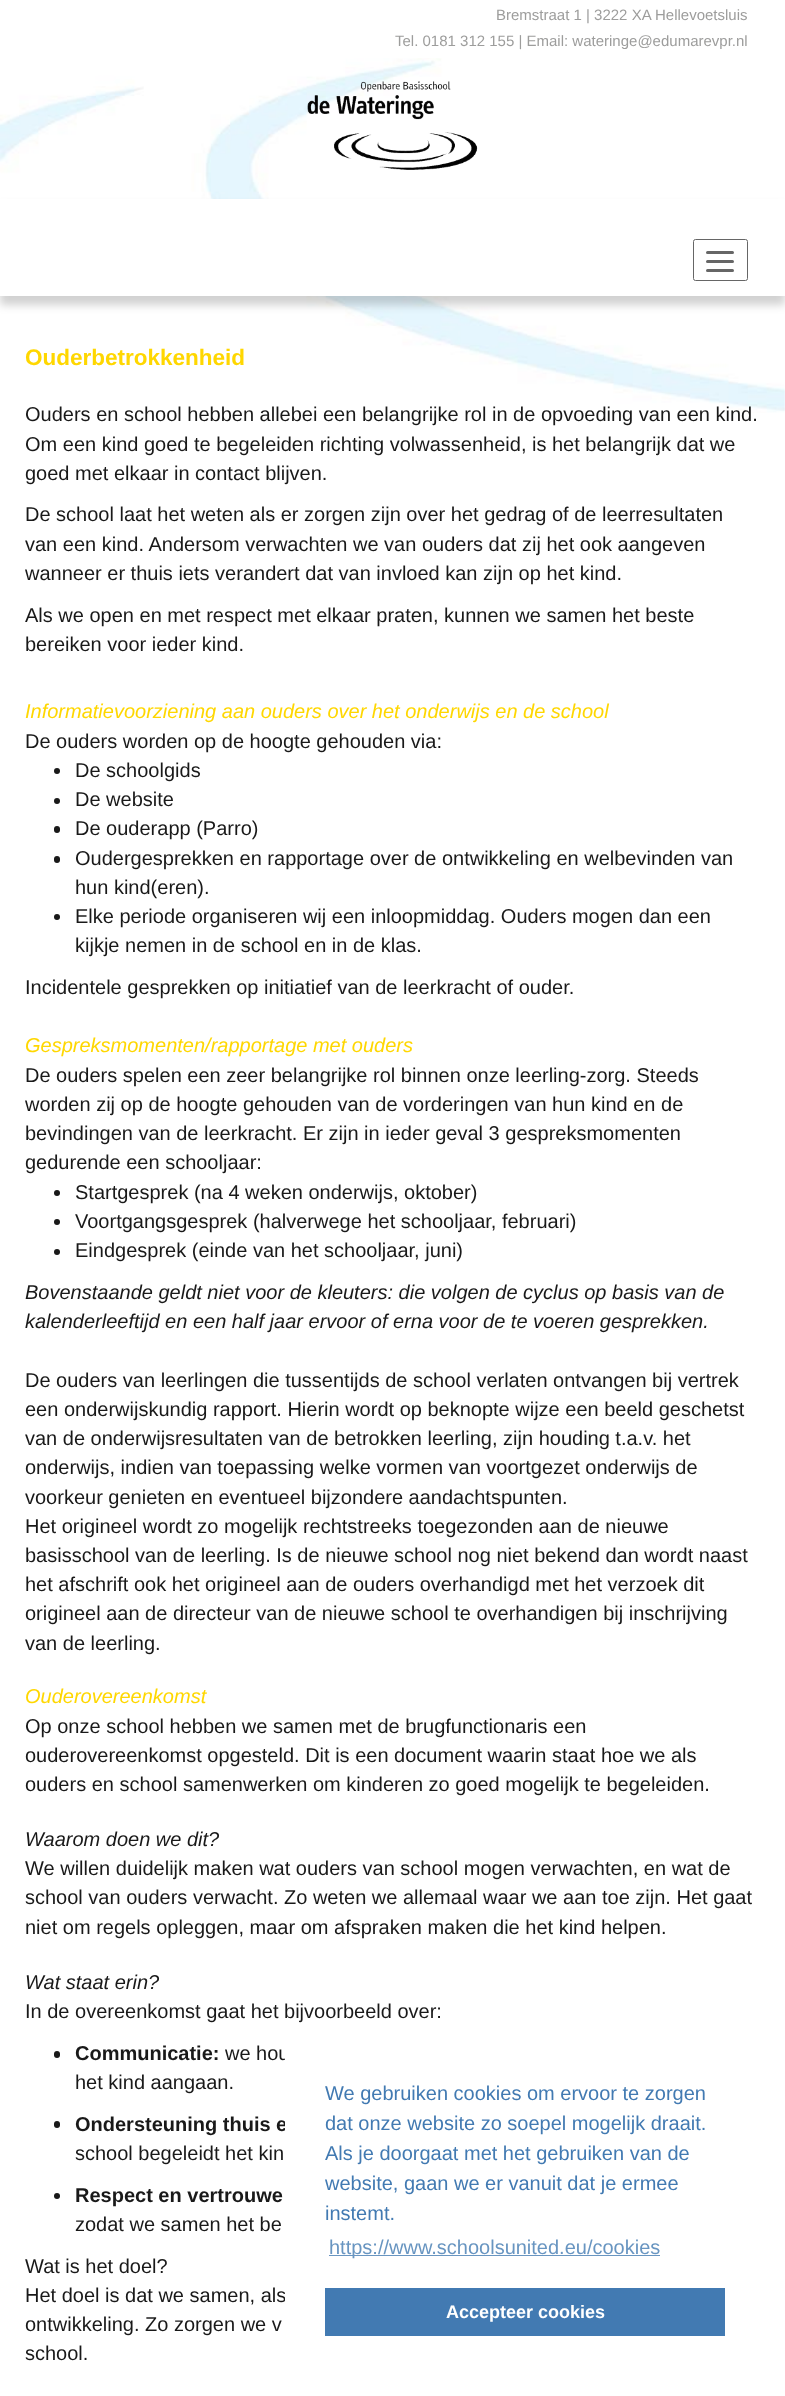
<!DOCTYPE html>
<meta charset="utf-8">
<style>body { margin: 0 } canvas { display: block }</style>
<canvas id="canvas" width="785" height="2396"></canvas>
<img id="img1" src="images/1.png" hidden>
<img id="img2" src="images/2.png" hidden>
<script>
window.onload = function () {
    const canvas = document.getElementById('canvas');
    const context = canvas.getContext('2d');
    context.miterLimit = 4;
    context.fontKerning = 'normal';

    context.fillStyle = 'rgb(255, 255, 255)';
    context.fillRect(0, 0, 785, 2396);
    context.drawImage(document.getElementById('img1'), 0, 58, 785, 355);
    context.drawImage(document.getElementById('img2'), 307, 81, 171, 89);
    context.fillStyle = 'rgba(0, 0, 0, 0.18)';
    context.filter = 'blur(4px)';
    context.beginPath();
    context.rect(0, 206, 785, 99);
    context.fill();
    context.filter = 'none';
    context.fillStyle = 'rgb(255, 255, 255)';
    context.fillRect(0, 199, 785, 97);
    context.beginPath();
    context.roundRect(693.5, 239.5, 54, 41, 2);
    context.strokeStyle = 'rgb(102, 102, 102)';
    context.stroke();
    context.fillStyle = 'rgb(102, 102, 102)';
    context.beginPath();
    context.roundRect(706, 251, 28, 3, 1.5);
    context.fill();
    context.beginPath();
    context.roundRect(706, 260, 28, 3, 1.5);
    context.fill();
    context.beginPath();
    context.roundRect(706, 269, 28, 3, 1.5);
    context.fill();
    context.fillStyle = 'rgb(25, 25, 25)';
    context.beginPath();
    context.arc(57, 771, 3, 0, 2 * Math.PI);
    context.fill();
    context.beginPath();
    context.arc(57, 801, 3, 0, 2 * Math.PI);
    context.fill();
    context.beginPath();
    context.roundRect(54, 826, 6, 7, 3);
    context.fill();
    context.beginPath();
    context.roundRect(54, 856, 6, 7, 3);
    context.fill();
    context.beginPath();
    context.arc(57, 917, 3, 0, 2 * Math.PI);
    context.fill();
    context.beginPath();
    context.arc(57, 1193, 3, 0, 2 * Math.PI);
    context.fill();
    context.beginPath();
    context.arc(57, 1222, 3, 0, 2 * Math.PI);
    context.fill();
    context.beginPath();
    context.arc(57, 1252, 3, 0, 2 * Math.PI);
    context.fill();
    context.beginPath();
    context.roundRect(54, 2051, 6, 7, 3);
    context.fill();
    context.beginPath();
    context.roundRect(54, 2121, 6, 7, 3);
    context.fill();
    context.beginPath();
    context.arc(57, 2196, 3, 0, 2 * Math.PI);
    context.fill();
    context.fillStyle = 'rgb(104, 149, 193)';
    context.fillRect(329, 2255, 331, 1);
    context.fillStyle = 'rgb(66, 122, 178)';
    context.fillRect(325, 2288, 400, 48);
    context.font = '15px Liberation Sans';
    context.fillStyle = 'rgb(157, 157, 156)';
    context.fillText('Bremstraat 1 | 3222 XA Hellevoetsluis', 496, 20);
    context.fillText('Tel. 0181 312 155 | Email: wateringe@edumarevpr.nl', 395, 46);
    context.font = 'bold 22.5px Liberation Sans';
    context.fillStyle = 'rgb(255, 215, 0)';
    context.fillText('Ouderbetrokkenheid', 25, 365);
    context.font = '20px Liberation Sans';
    context.fillStyle = 'rgb(25, 25, 25)';
    context.fillText('Ouders en school hebben allebei een belangrijke rol in de opvoeding van een kind.', 25, 421);
    context.fillText('Om een kind goed te begeleiden richting volwassenheid, is het belangrijk dat we', 25, 451);
    context.fillText('goed met elkaar in contact blijven.', 25, 480);
    context.fillText('De school laat het weten als er zorgen zijn over het gedrag of de leerresultaten', 25, 521);
    context.fillText('van een kind. Andersom verwachten we van ouders dat zij het ook aangeven', 25, 551);
    context.fillText('wanneer er thuis iets verandert dat van invloed kan zijn op het kind.', 25, 580);
    context.fillText('Als we open en met respect met elkaar praten, kunnen we samen het beste', 25, 622);
    context.fillText('bereiken voor ieder kind.', 25, 651);
    context.font = 'italic 20px Liberation Sans';
    context.fillStyle = 'rgb(255, 215, 0)';
    context.fillText('Informatievoorziening aan ouders over het onderwijs en de school', 25, 718);
    context.font = '20px Liberation Sans';
    context.fillStyle = 'rgb(25, 25, 25)';
    context.fillText('De ouders worden op de hoogte gehouden via:', 25, 748);
    context.fillText('De schoolgids', 75, 777);
    context.fillText('De website', 75, 806);
    context.fillText('De ouderapp (Parro)', 75, 835);
    context.fillText('Oudergesprekken en rapportage over de ontwikkeling en welbevinden van', 75, 865);
    context.fillText('hun kind(eren).', 75, 894);
    context.fillText('Elke periode organiseren wij een inloopmiddag. Ouders mogen dan een', 75, 923);
    context.fillText('kijkje nemen in de school en in de klas.', 75, 952);
    context.fillText('Incidentele gesprekken op initiatief van de leerkracht of ouder.', 25, 994);
    context.font = 'italic 20px Liberation Sans';
    context.fillStyle = 'rgb(255, 215, 0)';
    context.fillText('Gespreksmomenten/rapportage met ouders', 25, 1052);
    context.font = '20px Liberation Sans';
    context.fillStyle = 'rgb(25, 25, 25)';
    context.fillText('De ouders spelen een zeer belangrijke rol binnen onze leerling-zorg. Steeds', 25, 1082);
    context.fillText('worden zij op de hoogte gehouden van de vorderingen van hun kind en de', 25, 1111);
    context.fillText('bevindingen van de leerkracht. Er zijn in ieder geval 3 gespreksmomenten', 25, 1140);
    context.fillText('gedurende een schooljaar:', 25, 1169);
    context.fillText('Startgesprek (na 4 weken onderwijs, oktober)', 75, 1199);
    context.fillText('Voortgangsgesprek (halverwege het schooljaar, februari)', 75, 1228);
    context.fillText('Eindgesprek (einde van het schooljaar, juni)', 75, 1257);
    context.font = 'italic 20px Liberation Sans';
    context.fillText('Bovenstaande geldt niet voor de kleuters: die volgen de cyclus op basis van de', 25, 1299);
    context.fillText('kalenderleeftijd en een half jaar ervoor of erna voor de te voeren gesprekken.', 25, 1328);
    context.font = '20px Liberation Sans';
    context.fillText('De ouders van leerlingen die tussentijds de school verlaten ontvangen bij vertrek', 25, 1387);
    context.fillText('een onderwijskundig rapport. Hierin wordt op beknopte wijze een beeld geschetst', 25, 1416);
    context.fillText('van de onderwijsresultaten van de betrokken leerling, zijn houding t.a.v. het', 25, 1445);
    context.fillText('onderwijs, indien van toepassing welke vormen van voortgezet onderwijs de', 25, 1474);
    context.fillText('voorkeur genieten en eventueel bijzondere aandachtspunten.', 25, 1504);
    context.fillText('Het origineel wordt zo mogelijk rechtstreeks toegezonden aan de nieuwe', 25, 1533);
    context.fillText('basisschool van de leerling. Is de nieuwe school nog niet bekend dan wordt naast', 25, 1562);
    context.fillText('het afschrift ook het origineel aan de ouders overhandigd met het verzoek dit', 25, 1591);
    context.fillText('origineel aan de directeur van de nieuwe school te overhandigen bij inschrijving', 25, 1620);
    context.fillText('van de leerling.', 25, 1650);
    context.font = 'italic 20px Liberation Sans';
    context.fillStyle = 'rgb(255, 215, 0)';
    context.fillText('Ouderovereenkomst', 25, 1703);
    context.font = '20px Liberation Sans';
    context.fillStyle = 'rgb(25, 25, 25)';
    context.fillText('Op onze school hebben we samen met de brugfunctionaris een', 25, 1733);
    context.fillText('ouderovereenkomst opgesteld. Dit is een document waarin staat hoe we als', 25, 1762);
    context.fillText('ouders en school samenwerken om kinderen zo goed mogelijk te begeleiden.', 25, 1791);
    context.font = 'italic 20px Liberation Sans';
    context.fillText('Waarom doen we dit?', 25, 1846);
    context.font = '20px Liberation Sans';
    context.fillText('We willen duidelijk maken wat ouders van school mogen verwachten, en wat de', 25, 1875);
    context.fillText('school van ouders verwacht. Zo weten we allemaal waar we aan toe zijn. Het gaat', 25, 1904);
    context.fillText('niet om regels opleggen, maar om afspraken maken die het kind helpen.', 25, 1934);
    context.font = 'italic 20px Liberation Sans';
    context.fillText('Wat staat erin?', 25, 1989);
    context.font = '20px Liberation Sans';
    context.fillText('In de overeenkomst gaat het bijvoorbeeld over:', 25, 2018);
    context.font = 'bold 20px Liberation Sans';
    context.fillText('Communicatie:', 75, 2060);
    context.font = '20px Liberation Sans';
    context.fillText('we hou', 225, 2060);
    context.fillText('het kind aangaan.', 75, 2089);
    context.font = 'bold 20px Liberation Sans';
    context.fillText('Ondersteuning thuis e', 75, 2131);
    context.font = '20px Liberation Sans';
    context.fillText('school begeleidt het kin', 75, 2160);
    context.font = 'bold 20px Liberation Sans';
    context.fillText('Respect en vertrouwe', 75, 2202);
    context.font = '20px Liberation Sans';
    context.fillText('zodat we samen het be', 75, 2231);
    context.fillText('Wat is het doel?', 25, 2273);
    context.fillText('Het doel is dat we samen, als', 25, 2302);
    context.fillText('ontwikkeling. Zo zorgen we v', 25, 2331);
    context.fillText('school.', 25, 2360);
    context.fillStyle = 'rgb(255, 255, 255)';
    context.fillRect(285, 2049, 4, 252);
    context.fillStyle = 'rgb(66, 122, 178)';
    context.fillText('We gebruiken cookies om ervoor te zorgen', 325, 2100);
    context.fillText('dat onze website zo soepel mogelijk draait.', 325, 2130);
    context.fillText('Als je doorgaat met het gebruiken van de', 325, 2160);
    context.fillText('website, gaan we er vanuit dat je ermee', 325, 2190);
    context.fillText('instemt.', 325, 2220);
    context.fillStyle = 'rgb(104, 149, 193)';
    context.fillText('https://www.schoolsunited.eu/cookies', 329, 2254);
    context.font = 'bold 18px Liberation Sans';
    context.fillStyle = 'rgb(255, 255, 255)';
    context.fillText('Accepteer cookies', 446, 2318);
};
</script>
